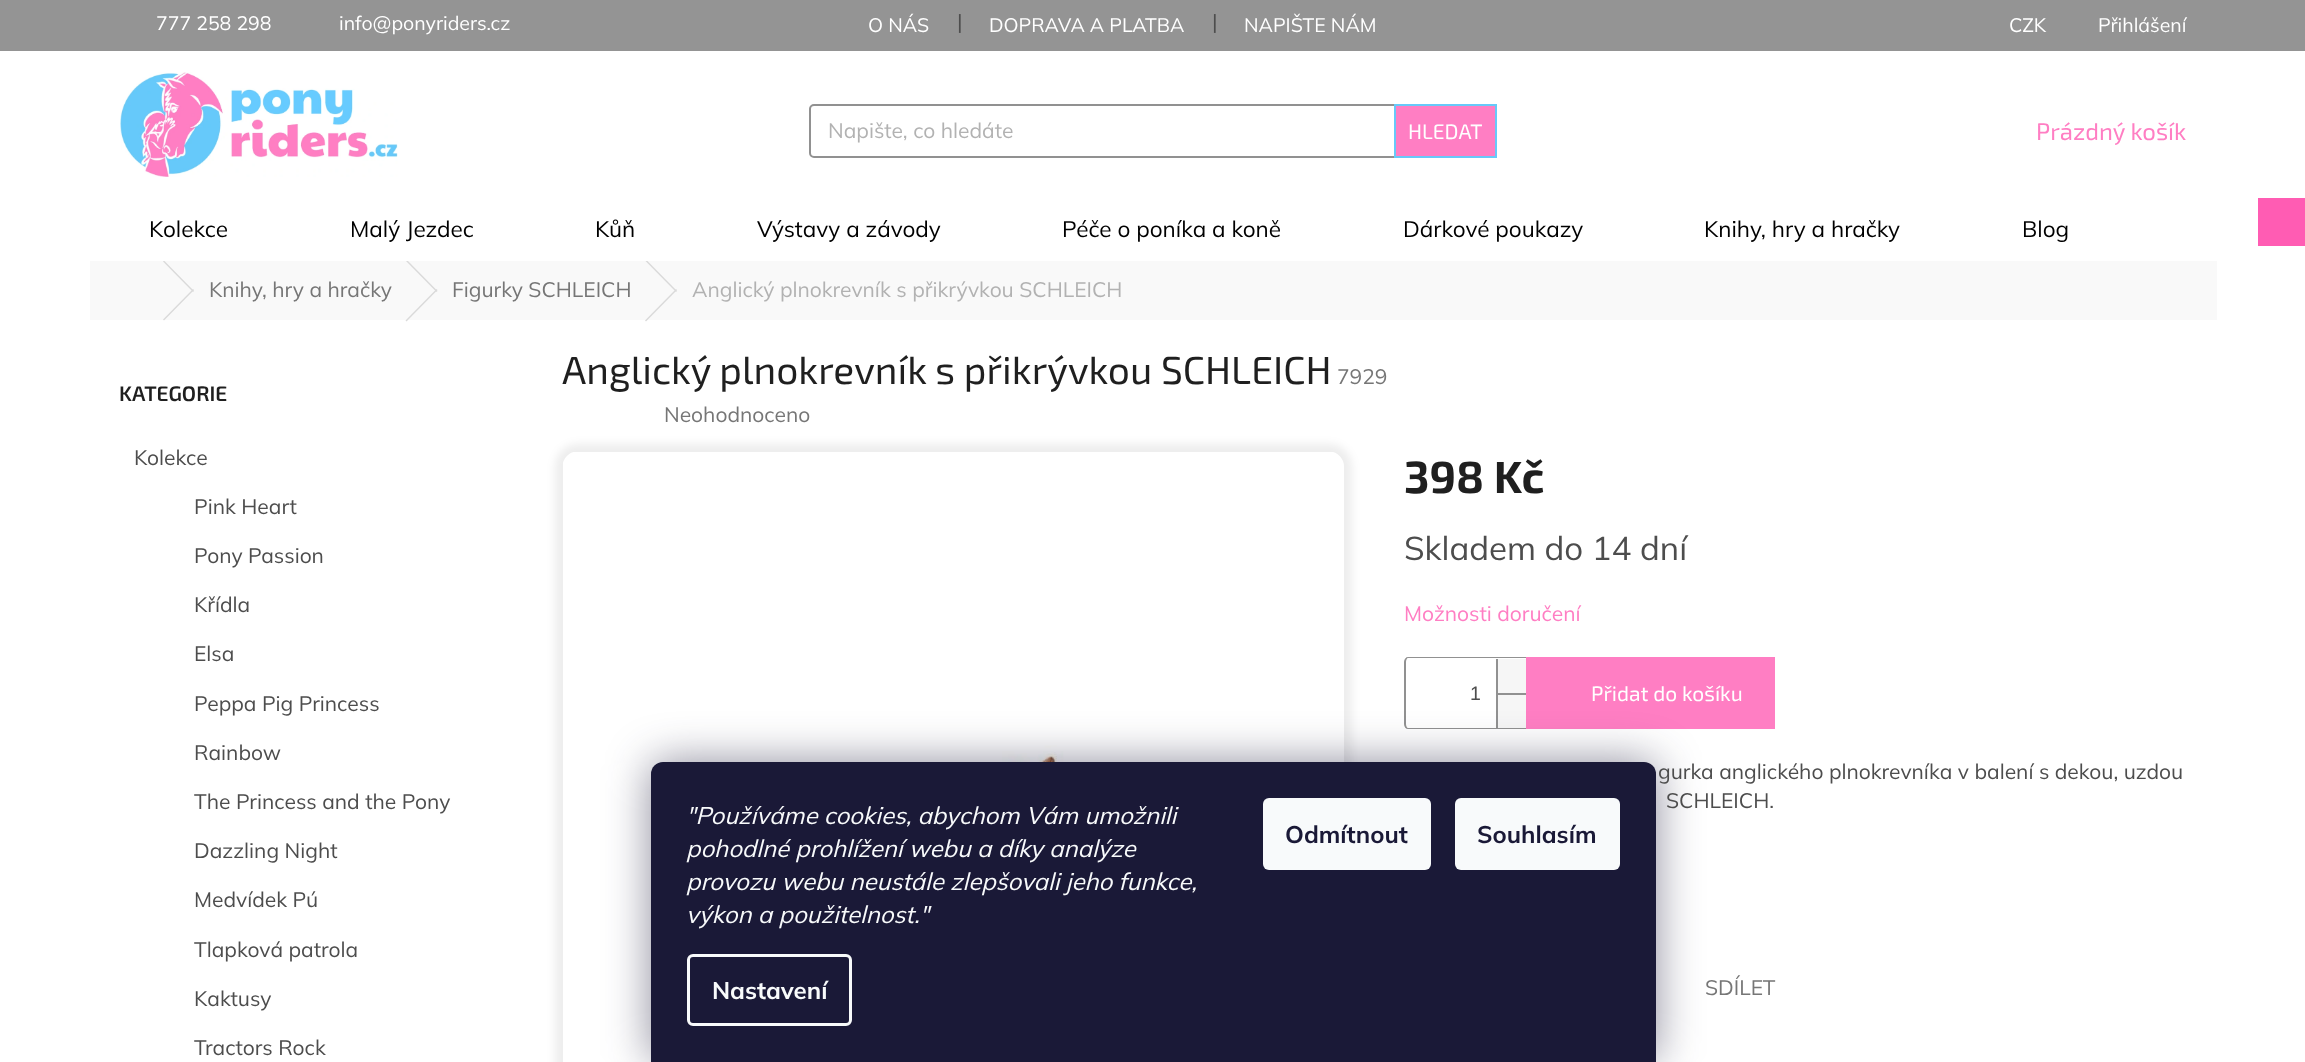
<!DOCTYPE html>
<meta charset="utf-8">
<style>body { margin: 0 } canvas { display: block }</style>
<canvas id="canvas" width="2305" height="1062"></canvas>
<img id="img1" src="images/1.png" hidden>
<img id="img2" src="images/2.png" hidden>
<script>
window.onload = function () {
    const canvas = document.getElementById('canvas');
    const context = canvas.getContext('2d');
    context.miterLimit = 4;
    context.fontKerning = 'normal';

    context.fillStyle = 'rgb(255, 255, 255)';
    context.fillRect(0, 0, 2305, 1062);
    context.fillStyle = 'rgb(148, 148, 148)';
    context.fillRect(0, 0, 2305, 51);
    context.fillStyle = 'rgb(249, 249, 249)';
    context.fillRect(90, 261, 2127, 59);
    context.fillStyle = 'rgb(218, 218, 218)';
    context.beginPath();
    context.moveTo(163, 261.5);
    context.lineTo(164, 260.5);
    context.lineTo(194, 291);
    context.lineTo(193, 292);
    context.closePath();
    context.fill();
    context.beginPath();
    context.moveTo(405.5, 260.5);
    context.lineTo(406.5, 259.5);
    context.lineTo(437.5, 291);
    context.lineTo(436.5, 292);
    context.closePath();
    context.fill();
    context.beginPath();
    context.moveTo(645, 260.5);
    context.lineTo(646, 259.5);
    context.lineTo(677, 291);
    context.lineTo(676, 292);
    context.closePath();
    context.fill();
    context.fillStyle = 'rgb(255, 255, 255)';
    context.fillRect(163, 259, 485, 2);
    context.drawImage(document.getElementById('img1'), 120, 72, 278, 105);
    context.beginPath();
    context.roundRect(810, 105, 686, 52, 4);
    context.strokeStyle = 'rgb(145, 145, 145)';
    context.lineWidth = 2;
    context.stroke();
    context.fillStyle = 'rgb(255, 126, 195)';
    context.beginPath();
    context.rect(1395, 105, 101, 52);
    context.fill();
    context.strokeStyle = 'rgb(103, 201, 249)';
    context.stroke();
    context.fillStyle = 'rgb(255, 92, 179)';
    context.fillRect(2258, 198, 47, 48);
    context.fillStyle = 'rgb(218, 218, 218)';
    context.beginPath();
    context.moveTo(193, 289);
    context.lineTo(194, 290);
    context.lineTo(164, 320.5);
    context.lineTo(163, 319.5);
    context.closePath();
    context.fill();
    context.beginPath();
    context.moveTo(436.5, 289);
    context.lineTo(437.5, 290);
    context.lineTo(406.5, 321.5);
    context.lineTo(405.5, 320.5);
    context.closePath();
    context.fill();
    context.beginPath();
    context.moveTo(676, 289);
    context.lineTo(677, 290);
    context.lineTo(646, 321.5);
    context.lineTo(645, 320.5);
    context.closePath();
    context.fill();
    context.fillStyle = 'rgba(0, 0, 0, 0.07)';
    context.filter = 'blur(4px)';
    context.beginPath();
    context.roundRect(555, 444, 797, 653, 23);
    context.fill();
    context.filter = 'none';
    context.drawImage(document.getElementById('img2'), 563, 452, 781, 610);
    context.fillStyle = 'rgb(145, 145, 145)';
    context.beginPath();
    context.moveTo(1408, 657);
    context.lineTo(1526, 657);
    context.lineTo(1526, 729);
    context.lineTo(1408, 729);
    context.bezierCurveTo(1406, 729, 1404, 727, 1404, 724);
    context.lineTo(1404, 662);
    context.bezierCurveTo(1404, 659, 1406, 657, 1408, 657);
    context.closePath();
    context.moveTo(1408, 658);
    context.lineTo(1526, 658);
    context.lineTo(1526, 728);
    context.lineTo(1408, 728);
    context.bezierCurveTo(1407, 728, 1406, 726, 1406, 724);
    context.lineTo(1406, 662);
    context.bezierCurveTo(1406, 660, 1407, 658, 1408, 658);
    context.closePath();
    context.fill('evenodd');
    context.fillStyle = 'rgb(246, 246, 246)';
    context.fillRect(1498, 659, 28, 34);
    context.fillStyle = 'rgb(145, 145, 145)';
    context.fillRect(1496, 659, 2, 34);
    context.fillStyle = 'rgb(246, 246, 246)';
    context.fillRect(1498, 695, 28, 33);
    context.fillStyle = 'rgb(145, 145, 145)';
    context.fillRect(1496, 693, 30, 2);
    context.fillRect(1496, 693, 2, 35);
    context.fillStyle = 'rgb(255, 126, 195)';
    context.fillRect(1526, 657, 249, 72);
    context.fillStyle = 'rgba(27, 25, 57, 0.5)';
    context.filter = 'blur(22.5px)';
    context.beginPath();
    context.roundRect(651, 762, 1005, 300, 12);
    context.fill();
    context.filter = 'none';
    context.fillStyle = 'rgb(26, 25, 55)';
    context.beginPath();
    context.roundRect(651, 762, 1005, 300, [12, 12, 0, 0]);
    context.fill();
    context.beginPath();
    context.roundRect(688.5, 955.5, 162, 69, 4.5);
    context.strokeStyle = 'rgb(248, 250, 251)';
    context.lineWidth = 3;
    context.stroke();
    context.fillStyle = 'rgb(248, 250, 251)';
    context.beginPath();
    context.roundRect(1263, 798, 168, 72, 6);
    context.fill();
    context.beginPath();
    context.roundRect(1455, 798, 165, 72, 6);
    context.fill();
    context.font = '19.5px Mulish';
    context.fillStyle = 'rgb(255, 255, 255)';
    context.fillText('777 258 298', 156, 30);
    context.fillText('info@ponyriders.cz', 339, 30);
    context.fillText('O NÁS', 868, 32);
    context.font = '21px Mulish';
    context.fillStyle = 'rgb(77, 77, 77)';
    context.fillText('|', 957, 29);
    context.font = '19.5px Mulish';
    context.fillStyle = 'rgb(255, 255, 255)';
    context.fillText('DOPRAVA A PLATBA', 989, 32);
    context.font = '21px Mulish';
    context.fillStyle = 'rgb(77, 77, 77)';
    context.fillText('|', 1212, 29);
    context.font = '19.5px Mulish';
    context.fillStyle = 'rgb(255, 255, 255)';
    context.fillText('NAPIŠTE NÁM', 1244, 32);
    context.fillText('CZK', 2009, 32);
    context.fillText('Přihlášení', 2098, 32);
    context.font = '21px Mulish';
    context.fillStyle = 'rgb(178, 178, 178)';
    context.fillText('Napište, co hledáte', 828, 138);
    context.font = '21px "Exo 2"';
    context.fillStyle = 'rgb(255, 255, 255)';
    context.fillText('HLEDAT', 1408, 139);
    context.font = '24px "Exo 2"';
    context.fillStyle = 'rgb(255, 126, 195)';
    context.fillText('Prázdný košík', 2036, 140);
    context.font = '22.5px Mulish';
    context.fillStyle = 'rgb(0, 0, 0)';
    context.fillText('Kolekce', 149, 237);
    context.fillText('Malý Jezdec', 350, 237);
    context.fillText('Kůň', 595, 237);
    context.fillText('Výstavy a závody', 757, 237);
    context.fillText('Péče o poníka a koně', 1062, 237);
    context.fillText('Dárkové poukazy', 1403, 237);
    context.fillText('Knihy, hry a hračky', 1704, 237);
    context.fillText('Blog', 2022, 237);
    context.font = '21px Mulish';
    context.fillStyle = 'rgb(118, 118, 118)';
    context.fillText('Knihy, hry a hračky', 209, 297);
    context.fillText('Figurky SCHLEICH', 452, 297);
    context.fillStyle = 'rgb(178, 178, 178)';
    context.fillText('Anglický plnokrevník s přikrývkou SCHLEICH', 692, 297);
    context.font = '600 21px "Exo 2"';
    context.fillStyle = 'rgb(31, 31, 31)';
    context.fillText('KATEGORIE', 119, 401);
    context.font = '21px Mulish';
    context.fillStyle = 'rgb(77, 77, 77)';
    context.fillText('Kolekce', 134, 465);
    context.fillText('Pink Heart', 194, 514);
    context.fillText('Pony Passion', 194, 563);
    context.fillText('Křídla', 194, 612);
    context.fillText('Elsa', 194, 661);
    context.fillText('Peppa Pig Princess', 194, 711);
    context.fillText('Rainbow', 194, 760);
    context.fillText('The Princess and the Pony', 194, 809);
    context.fillText('Dazzling Night', 194, 858);
    context.fillText('Medvídek Pú', 194, 907);
    context.fillText('Tlapková patrola', 194, 957);
    context.fillText('Kaktusy', 194, 1006);
    context.fillText('Tractors Rock', 194, 1055);
    context.font = '39px "Exo 2"';
    context.fillStyle = 'rgb(31, 31, 31)';
    context.fillText('Anglický plnokrevník s přikrývkou SCHLEICH', 562, 384);
    context.font = '21px Mulish';
    context.fillStyle = 'rgb(118, 118, 118)';
    context.fillText('7929', 1337, 384);
    context.fillText('Neohodnoceno', 664, 422);
    context.font = 'bold 45px "Exo 2"';
    context.fillStyle = 'rgb(31, 31, 31)';
    context.fillText('398 Kč', 1404, 493);
    context.font = '33px Mulish';
    context.fillStyle = 'rgb(77, 77, 77)';
    context.fillText('Skladem do 14 dní', 1404, 560);
    context.font = '21px Mulish';
    context.fillStyle = 'rgb(255, 126, 195)';
    context.fillText('Možnosti doručení', 1404, 621);
    context.font = '19.5px Liberation Sans';
    context.fillStyle = 'rgb(77, 77, 77)';
    context.fillText('1', 1470, 700);
    context.font = '21px "Exo 2"';
    context.fillStyle = 'rgb(255, 255, 255)';
    context.fillText('Přidat do košíku', 1591, 701);
    context.font = '21px Mulish';
    context.fillStyle = 'rgb(77, 77, 77)';
    context.fillText('gurka anglického plnokrevníka v balení s dekou, uzdou', 1658, 779);
    context.fillText('SCHLEICH.', 1666, 808);
    context.fillStyle = 'rgb(118, 118, 118)';
    context.fillText('SDÍLET', 1705, 995);
    context.font = 'italic 24px Mulish';
    context.fillStyle = 'rgb(248, 250, 251)';
    context.fillText('"Používáme cookies, abychom Vám umožnili', 686, 824);
    context.fillText('pohodlné prohlížení webu a díky analýze', 686, 857);
    context.fillText('provozu webu neustále zlepšovali jeho funkce,', 686, 890);
    context.fillText('výkon a použitelnost."', 686, 923);
    context.font = 'bold 24px Mulish';
    context.fillText('Nastavení', 712, 999);
    context.fillStyle = 'rgb(26, 25, 55)';
    context.fillText('Odmítnout', 1285, 843);
    context.fillText('Souhlasím', 1477, 843);
};
</script>
